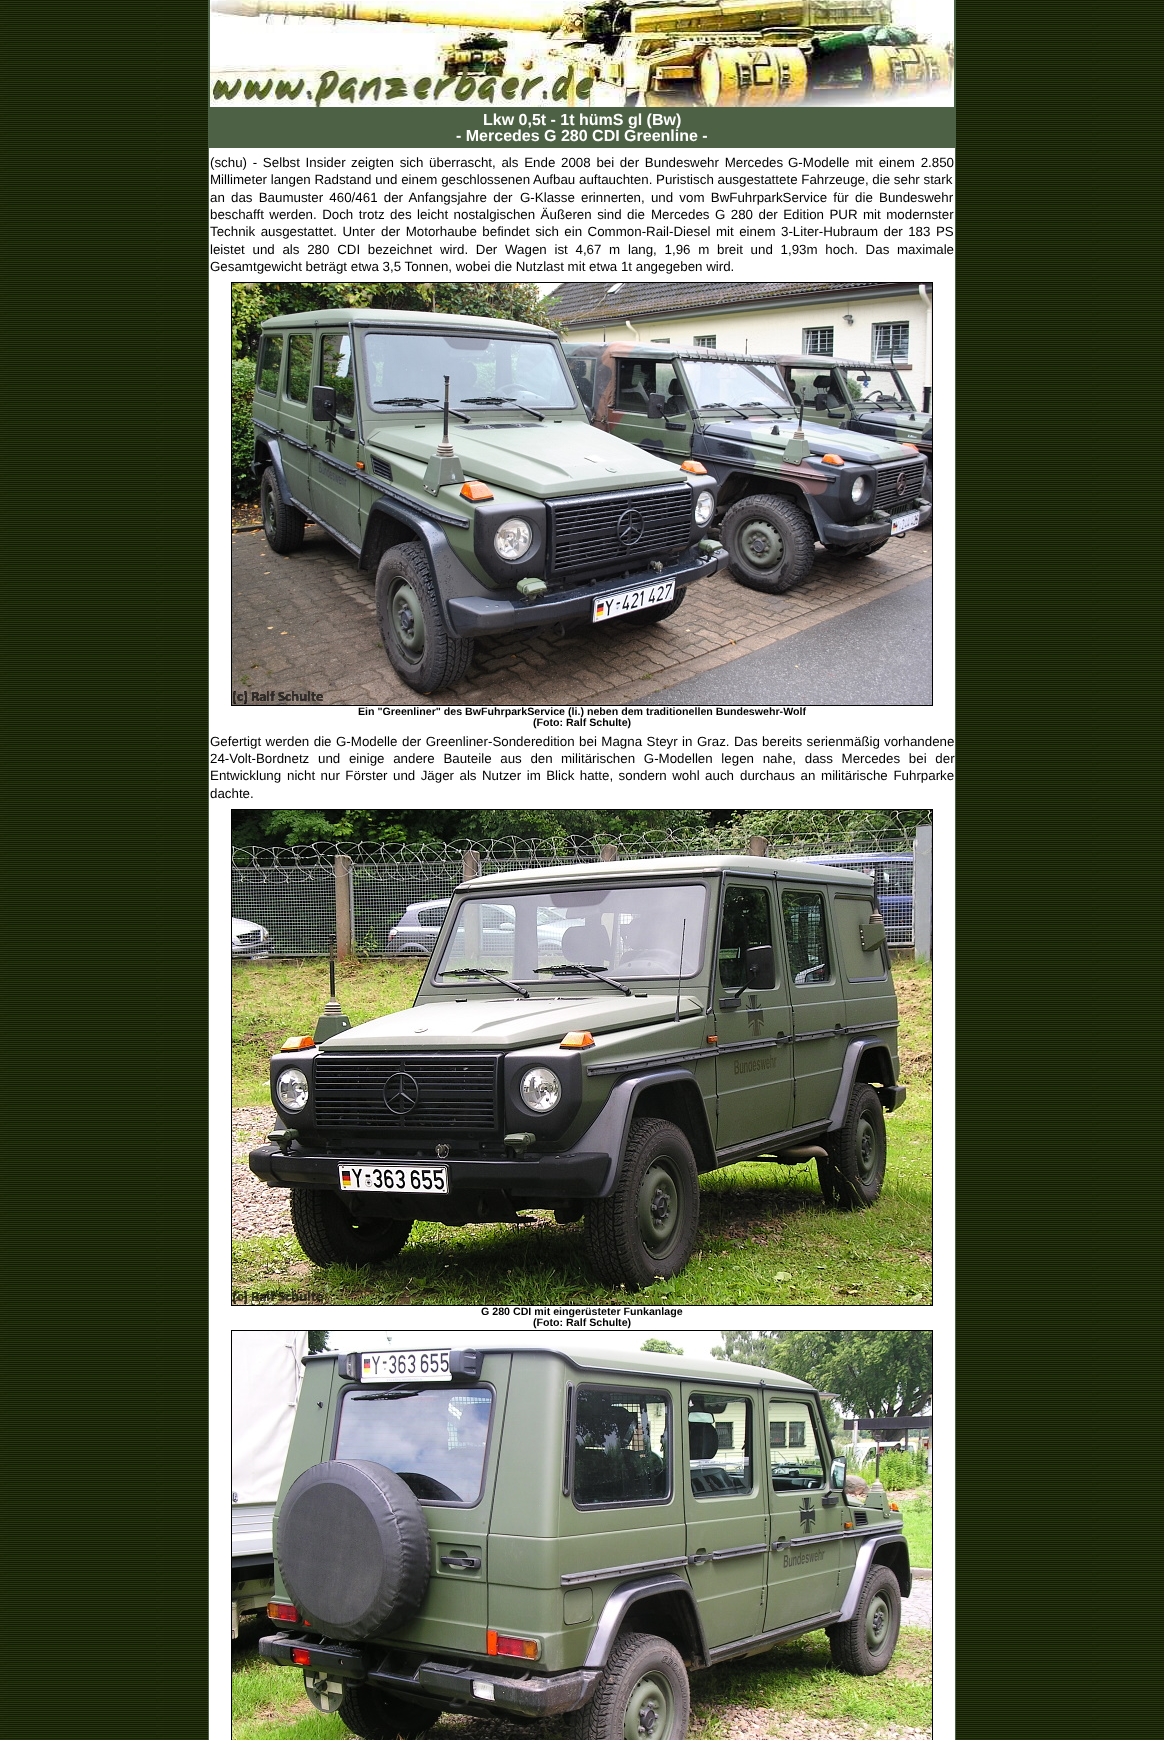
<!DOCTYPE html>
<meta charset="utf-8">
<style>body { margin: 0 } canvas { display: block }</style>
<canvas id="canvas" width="1164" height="1740"></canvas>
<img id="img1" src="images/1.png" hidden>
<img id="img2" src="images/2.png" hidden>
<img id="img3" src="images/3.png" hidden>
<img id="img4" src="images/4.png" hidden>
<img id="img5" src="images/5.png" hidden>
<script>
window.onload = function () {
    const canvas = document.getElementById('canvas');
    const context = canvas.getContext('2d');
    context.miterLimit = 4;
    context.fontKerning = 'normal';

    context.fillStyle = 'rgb(255, 255, 255)';
    context.fillRect(0, 0, 1164, 1740);
    context.drawImage(document.getElementById('img1'), 0, 0, 1164, 1740);
    context.fillStyle = 'rgb(77, 98, 68)';
    context.fillRect(208, 0, 748, 1740);
    context.drawImage(document.getElementById('img2'), 210, 0, 744, 107);
    context.fillStyle = 'rgb(255, 255, 255)';
    context.fillRect(209, 148, 746, 1592);
    context.strokeStyle = 'rgb(0, 0, 0)';
    context.strokeRect(231.5, 282.5, 701, 423);
    context.drawImage(document.getElementById('img3'), 232, 283, 700, 422);
    context.strokeRect(231.5, 809.5, 701, 496);
    context.drawImage(document.getElementById('img4'), 232, 810, 700, 495);
    context.strokeRect(231.5, 1330.5, 701, 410);
    context.drawImage(document.getElementById('img5'), 232, 1331, 700, 409);
    context.font = 'bold 16px Liberation Sans';
    context.fillText('Lkw 0,5t - 1t hümS gl (Bw)', 483, 125);
    context.fillText('- Mercedes G 280 CDI Greenline -', 456, 141);
    context.wordSpacing = '2px';
    context.font = '13.33px Liberation Sans';
    context.fillStyle = 'rgb(0, 0, 0)';
    context.fillText('(schu) - Selbst Insider', 210, 167);
    context.fillText('zeigten sich überrascht, als Ende 2008 bei der Bundeswehr Mercedes', 351, 167);
    context.fillText('G-Modelle mit einem 2.850', 788, 167);
    context.wordSpacing = '0px';
    context.fillText('Millimeter langen Radstand und einem geschlossenen Aufbau auftauchten. Puristisch ausgestattete Fahrzeuge, die sehr stark', 210, 184);
    context.wordSpacing = '2.5px';
    context.fillText('an das Baumuster 460/461 der Anfangsjahre der', 210, 202);
    context.fillText('G-Klasse erinnerten, und vom BwFuhrparkService für die Bundeswehr', 520, 202);
    context.wordSpacing = '1.75px';
    context.fillText('beschafft werden. Doch trotz des leicht nostalgischen Äußeren sind die', 210, 219);
    context.fillText('Mercedes G 280 der Edition PUR mit modernster', 651, 219);
    context.fillText('Technik ausgestattet. Unter', 210, 236);
    context.fillText('der Motorhaube befindet sich ein Common-Rail-Diesel mit einem', 381, 236);
    context.fillText('3-Liter-Hubraum der 183 PS', 781, 236);
    context.wordSpacing = '4px';
    context.fillText('leistet und als 280 CDI bezeichnet wird. Der', 210, 254);
    context.fillText('Wagen ist 4,67 m lang, 1,96 m breit und 1,93m hoch. Das maximale', 505, 254);
    context.wordSpacing = '0px';
    context.fillText('Gesamtgewicht beträgt etwa 3,5 Tonnen, wobei die Nutzlast mit etwa 1t angegeben wird.', 210, 271);
    context.font = 'bold 10.65px Liberation Sans';
    context.fillText('Ein "Greenliner" des BwFuhrparkService (li.) neben dem traditionellen Bundeswehr-Wolf', 358, 715);
    context.fillText('(Foto: Ralf Schulte)', 533, 726);
    context.wordSpacing = '0.75px';
    context.font = '13.33px Liberation Sans';
    context.fillText('Gefertigt werden die G-Modelle', 210, 746);
    context.fillText('der Greenliner-Sonderedition bei Magna Steyr in Graz. Das bereits serienmäßig', 402, 746);
    context.wordSpacing = '0px';
    context.fillText('vorhandene', 884, 746);
    context.wordSpacing = '5px';
    context.fillText('24-Volt-Bordnetz und einige andere Bauteile aus den', 210, 763);
    context.fillText('militärischen G-Modellen legen nahe, dass Mercedes bei der', 561, 763);
    context.wordSpacing = '0px';
    context.fillText('Entwicklung', 210, 780);
    context.wordSpacing = '1.75px';
    context.fillText('nicht nur Förster und Jäger als Nutzer im Blick hatte, sondern wohl auch', 287, 780);
    context.wordSpacing = '2px';
    context.fillText('durchaus an militärische Fuhrparke', 740, 780);
    context.wordSpacing = '0px';
    context.fillText('dachte.', 210, 798);
    context.font = 'bold 10.65px Liberation Sans';
    context.fillText('G 280 CDI mit eingerüsteter Funkanlage', 481, 1315);
    context.fillText('(Foto: Ralf Schulte)', 533, 1326);
};
</script>
